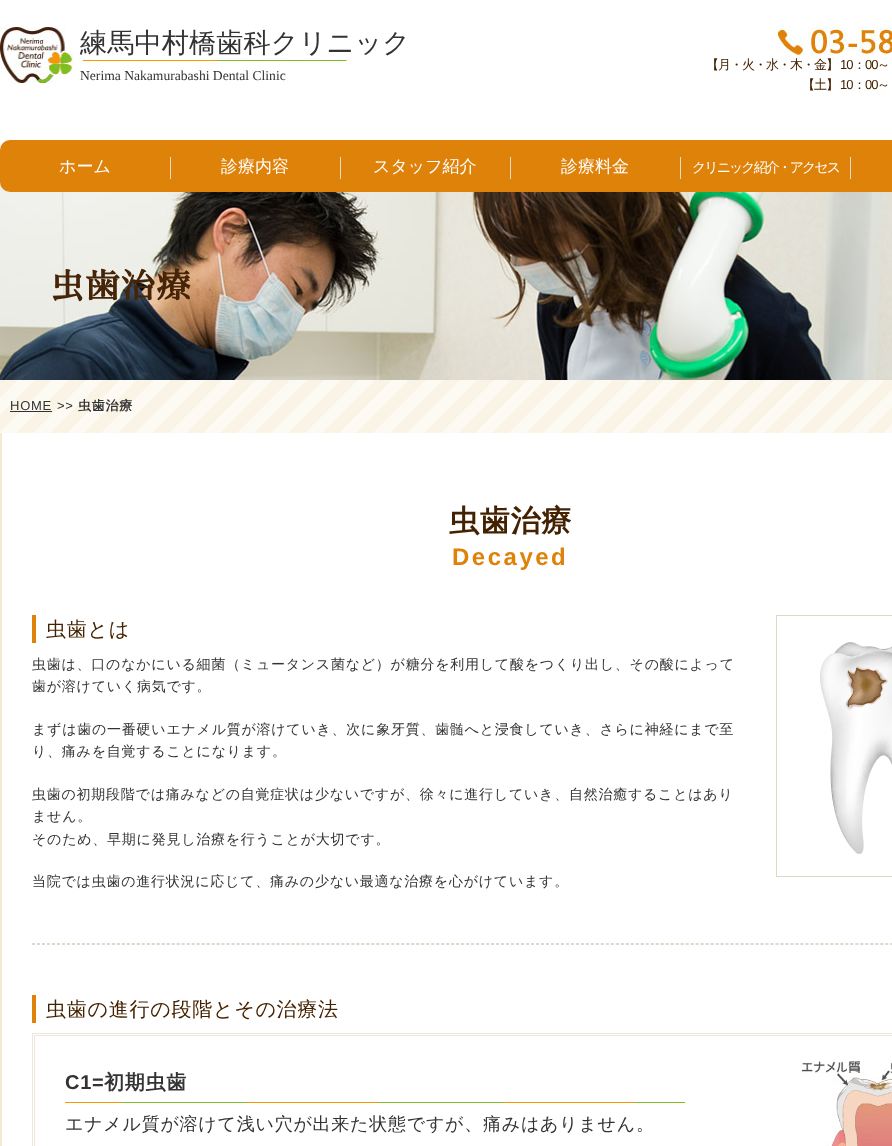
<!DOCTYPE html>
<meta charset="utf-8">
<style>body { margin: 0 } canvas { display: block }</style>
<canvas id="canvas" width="892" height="1146"></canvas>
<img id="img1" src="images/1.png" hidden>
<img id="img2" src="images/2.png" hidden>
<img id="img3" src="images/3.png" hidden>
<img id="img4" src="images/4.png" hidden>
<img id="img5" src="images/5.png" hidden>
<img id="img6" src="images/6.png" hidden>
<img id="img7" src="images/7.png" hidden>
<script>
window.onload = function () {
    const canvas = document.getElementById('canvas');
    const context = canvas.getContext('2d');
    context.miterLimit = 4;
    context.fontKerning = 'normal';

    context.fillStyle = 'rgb(255, 255, 255)';
    context.fillRect(0, 0, 892, 1146);
    context.drawImage(document.getElementById('img1'), 0, 27, 410, 56);
    context.drawImage(document.getElementById('img2'), 776, 27, 116, 28);
    context.drawImage(document.getElementById('img3'), 0, 182, 892, 198);
    context.fillStyle = 'rgb(223, 130, 10)';
    context.beginPath();
    context.roundRect(0, 140, 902, 52, 10);
    context.fill();
    context.fillStyle = 'rgb(232, 222, 199)';
    context.fillRect(170, 157, 1, 22);
    context.fillRect(340, 157, 1, 22);
    context.fillRect(510, 157, 1, 22);
    context.fillRect(680, 157, 1, 22);
    context.fillRect(850, 157, 1, 22);
    context.drawImage(document.getElementById('img4'), 0, 380, 892, 53);
    context.fillStyle = 'rgb(51, 51, 51)';
    context.fillRect(10, 411, 42, 1);
    context.fillStyle = 'rgb(244, 233, 210)';
    context.fillRect(0, 433, 2, 713);
    context.fillStyle = 'rgb(223, 130, 10)';
    context.fillRect(32, 615, 4, 28);
    context.strokeStyle = 'rgb(223, 215, 199)';
    context.strokeRect(776.5, 615.5, 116, 261);
    context.drawImage(document.getElementById('img5'), 820, 642, 72, 212);
    context.beginPath();
    context.moveTo(32, 943.5);
    context.lineTo(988, 943.5);
    context.setLineDash([3, 1.99]);
    context.stroke();
    context.beginPath();
    context.moveTo(32, 944.5);
    context.lineTo(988, 944.5);
    context.stroke();
    context.fillRect(32, 995, 4, 28);
    context.strokeStyle = 'rgb(237, 230, 217)';
    context.setLineDash([]);
    context.strokeRect(32.5, 1033.5, 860, 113);
    context.strokeRect(34.5, 1035.5, 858, 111);
    context.drawImage(document.getElementById('img6'), 65, 1102, 620, 1);
    context.drawImage(document.getElementById('img7'), 800, 1061, 92, 85);
    context.font = '500 27.25px WenQuanYi Zen Hei';
    context.fillStyle = 'rgb(51, 51, 51)';
    context.fillText('練馬中村橋歯科クリニック', 80, 52);
    context.font = '13.6px Liberation Serif';
    context.fillText('Nerima Nakamurabashi Dental Clinic', 80, 80);
    context.letterSpacing = '-1px';
    context.font = '500 13px WenQuanYi Zen Hei';
    context.fillStyle = 'rgb(68, 34, 1)';
    context.fillText('【月・火・水・木・金】', 706, 69);
    context.font = '13px Liberation Sans';
    context.fillText('10', 840, 69);
    context.font = '500 13px WenQuanYi Zen Hei';
    context.fillText('：', 853, 69);
    context.font = '13px Liberation Sans';
    context.fillText('00', 865, 69);
    context.font = '500 13px WenQuanYi Zen Hei';
    context.fillText('～', 877, 69);
    context.fillText('【土】', 802, 89);
    context.font = '13px Liberation Sans';
    context.fillText('10', 840, 89);
    context.font = '500 13px WenQuanYi Zen Hei';
    context.fillText('：', 853, 89);
    context.font = '13px Liberation Sans';
    context.fillText('00', 865, 89);
    context.font = '500 13px WenQuanYi Zen Hei';
    context.fillText('～', 877, 89);
    context.letterSpacing = '0px';
    context.font = '500 17px WenQuanYi Zen Hei';
    context.fillStyle = 'rgb(255, 255, 255)';
    context.fillText('ホーム', 59, 172);
    context.fillText('診療内容', 221, 172);
    context.fillText('スタッフ紹介', 373, 172);
    context.fillText('診療料金', 561, 172);
    context.letterSpacing = '-2px';
    context.font = '500 14px WenQuanYi Zen Hei';
    context.fillText('クリニック紹介・アクセス', 692, 172);
    context.letterSpacing = '1.5px';
    context.font = 'bold 34px Sawarabi Mincho';
    context.fillStyle = 'rgb(70, 36, 8)';
    context.fillText('虫歯治療', 50, 298);
    context.letterSpacing = '0.75px';
    context.font = '13px Liberation Sans';
    context.fillStyle = 'rgb(51, 51, 51)';
    context.fillText('HOME', 10, 410);
    context.fillText('>>', 57, 410);
    context.font = 'bold 13px WenQuanYi Zen Hei';
    context.fillText('虫歯治療', 78, 410);
    context.font = 'bold 30px WenQuanYi Zen Hei';
    context.fillStyle = 'rgb(68, 34, 1)';
    context.fillText('虫歯治療', 449, 531);
    context.letterSpacing = '2.5px';
    context.font = 'bold 24px Liberation Sans';
    context.fillStyle = 'rgb(223, 130, 10)';
    context.fillText('Decayed', 452, 565);
    context.letterSpacing = '0.75px';
    context.font = '500 20px WenQuanYi Zen Hei';
    context.fillStyle = 'rgb(68, 34, 1)';
    context.fillText('虫歯とは', 46, 636);
    context.font = '500 14px WenQuanYi Zen Hei';
    context.fillStyle = 'rgb(51, 51, 51)';
    context.fillText('虫歯は、口のなかにいる細菌（ミュータンス菌など）が糖分を利用して酸をつくり出し、その酸によって', 32, 669);
    context.fillText('歯が溶けていく病気です。', 32, 691);
    context.fillText('まずは歯の一番硬いエナメル質が溶けていき、次に象牙質、歯髄へと浸食していき、さらに神経にまで至', 32, 734);
    context.fillText('り、痛みを自覚することになります。', 32, 756);
    context.fillText('虫歯の初期段階では痛みなどの自覚症状は少ないですが、徐々に進行していき、自然治癒することはあり', 32, 799);
    context.fillText('ません。', 32, 821);
    context.fillText('そのため、早期に発見し治療を行うことが大切です。', 32, 844);
    context.fillText('当院では虫歯の進行状況に応じて、痛みの少ない最適な治療を心がけています。', 32, 886);
    context.font = '500 20px WenQuanYi Zen Hei';
    context.fillStyle = 'rgb(68, 34, 1)';
    context.fillText('虫歯の進行の段階とその治療法', 46, 1016);
    context.font = 'bold 20px Liberation Sans';
    context.fillStyle = 'rgb(51, 51, 51)';
    context.fillText('C1=', 65, 1089);
    context.font = 'bold 20px WenQuanYi Zen Hei';
    context.fillText('初期虫歯', 104, 1089);
    context.font = '500 18px WenQuanYi Zen Hei';
    context.fillText('エナメル質が溶けて浅い穴が出来た状態ですが、痛みはありません。', 65, 1130);
};
</script>
